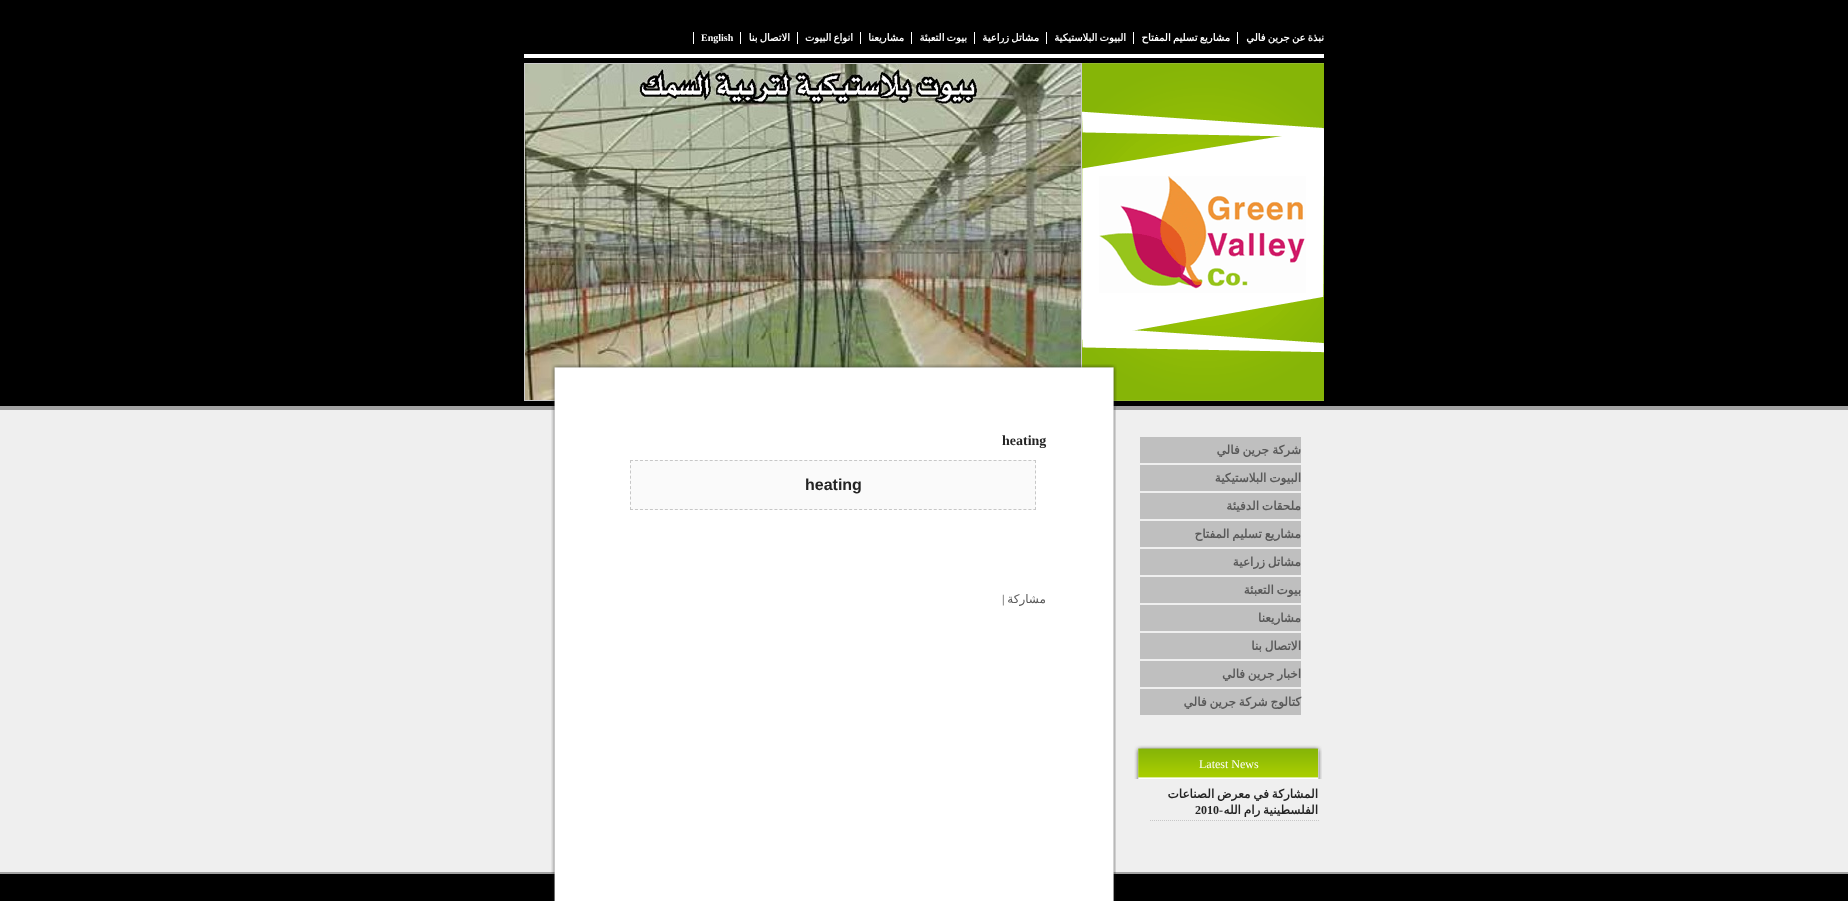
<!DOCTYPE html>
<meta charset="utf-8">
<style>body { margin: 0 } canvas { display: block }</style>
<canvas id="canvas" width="1848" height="901"></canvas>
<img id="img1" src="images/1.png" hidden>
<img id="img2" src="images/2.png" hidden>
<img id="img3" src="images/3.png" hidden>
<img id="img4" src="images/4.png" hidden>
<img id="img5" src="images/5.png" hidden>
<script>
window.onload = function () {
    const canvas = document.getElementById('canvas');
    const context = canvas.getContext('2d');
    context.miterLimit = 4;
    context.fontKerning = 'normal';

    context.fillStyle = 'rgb(239, 239, 239)';
    context.fillRect(0, 0, 1848, 901);
    context.fillStyle = 'rgb(0, 0, 0)';
    context.fillRect(0, 0, 1848, 406);
    context.fillStyle = 'rgb(163, 163, 163)';
    context.fillRect(0, 406, 1848, 4);
    context.fillStyle = 'rgb(255, 255, 255)';
    context.fillRect(524, 54, 800, 4);
    context.fillRect(1237, 32, 1, 12);
    context.fillRect(1133, 32, 1, 12);
    context.fillRect(1046, 32, 1, 12);
    context.fillRect(974, 32, 1, 12);
    context.fillRect(911, 32, 1, 12);
    context.fillRect(860, 32, 1, 12);
    context.fillRect(797, 32, 1, 12);
    context.fillRect(740, 32, 1, 12);
    context.fillRect(693, 32, 1, 12);
    context.drawImage(document.getElementById('img1'), 1082, 63, 242, 338);
    context.strokeStyle = 'rgb(204, 204, 204)';
    context.strokeRect(524.5, 63.5, 557, 337);
    context.drawImage(document.getElementById('img2'), 525, 64, 556, 336);
    context.drawImage(document.getElementById('img3'), 551, 364, 566, 43);
    context.fillStyle = 'rgb(191, 191, 191)';
    context.fillRect(1140, 437, 161, 26);
    context.fillRect(1140, 465, 161, 26);
    context.fillRect(1140, 493, 161, 26);
    context.fillRect(1140, 521, 161, 26);
    context.fillRect(1140, 549, 161, 26);
    context.fillRect(1140, 577, 161, 26);
    context.fillRect(1140, 605, 161, 26);
    context.fillRect(1140, 633, 161, 26);
    context.fillRect(1140, 661, 161, 26);
    context.fillRect(1140, 689, 161, 26);
    context.drawImage(document.getElementById('img4'), 1134, 745, 188, 34);
    context.beginPath();
    context.moveTo(1150, 820.5);
    context.lineTo(1320, 820.5);
    context.strokeStyle = 'rgb(199, 199, 199)';
    context.setLineDash([1, 1]);
    context.stroke();
    context.fillStyle = 'rgb(0, 0, 0)';
    context.fillRect(0, 874, 1848, 27);
    context.fillStyle = 'rgb(163, 163, 163)';
    context.fillRect(0, 872, 1848, 2);
    context.drawImage(document.getElementById('img5'), 551, 407, 565, 494);
    context.fillStyle = 'rgb(250, 250, 250)';
    context.fillRect(630, 460, 406, 50);
    context.beginPath();
    context.moveTo(630, 460.5);
    context.lineTo(1036, 460.5);
    context.setLineDash([3, 1.98]);
    context.stroke();
    context.beginPath();
    context.moveTo(1035.5, 460);
    context.lineTo(1035.5, 510);
    context.setLineDash([3, 2.22]);
    context.stroke();
    context.beginPath();
    context.moveTo(630, 509.5);
    context.lineTo(1036, 509.5);
    context.setLineDash([3, 1.98]);
    context.stroke();
    context.beginPath();
    context.moveTo(630.5, 460);
    context.lineTo(630.5, 510);
    context.setLineDash([3, 2.22]);
    context.stroke();
    context.wordSpacing = '-1px';
    context.direction = 'rtl';
    context.font = 'bold 10px DejaVu Sans';
    context.fillStyle = 'rgb(255, 255, 255)';
    context.fillText('نبذة عن جرين فالي', 1324, 41);
    context.fillText('مشاريع تسليم المفتاح', 1230, 41);
    context.fillText('البيوت البلاستيكية', 1126, 41);
    context.fillText('مشاتل زراعية', 1039, 41);
    context.fillText('بيوت التعبئة', 967, 41);
    context.wordSpacing = '0px';
    context.fillText('مشاريعنا', 904, 41);
    context.wordSpacing = '-1px';
    context.fillText('انواع البيوت', 853, 41);
    context.fillText('الاتصال بنا', 790, 41);
    context.wordSpacing = '0px';
    context.direction = 'ltr';
    context.font = 'bold 10px Liberation Serif';
    context.fillText('English', 701, 41);
    context.direction = 'rtl';
    context.font = 'bold 12px DejaVu Sans';
    context.fillStyle = 'rgb(89, 89, 89)';
    context.fillText('شركة', 1301, 454);
    context.wordSpacing = '-1px';
    context.fillText('جرين فالي', 1269, 454);
    context.fillText('البيوت البلاستيكية', 1301, 482);
    context.fillText('ملحقات الدفيئة', 1301, 510);
    context.fillText('مشاريع تسليم المفتاح', 1301, 538);
    context.fillText('مشاتل زراعية', 1301, 566);
    context.fillText('بيوت التعبئة', 1301, 594);
    context.wordSpacing = '0px';
    context.fillText('مشاريعنا', 1301, 622);
    context.wordSpacing = '-1px';
    context.fillText('الاتصال بنا', 1301, 650);
    context.fillText('اخبار جرين فالي', 1301, 678);
    context.fillText('كتالوج شركة جرين فالي', 1301, 706);
    context.wordSpacing = '0px';
    context.direction = 'ltr';
    context.font = '12px Liberation Serif';
    context.fillStyle = 'rgb(255, 255, 255)';
    context.fillText('Latest News', 1199, 768);
    context.wordSpacing = '-1px';
    context.direction = 'rtl';
    context.font = 'bold 12px DejaVu Sans';
    context.fillStyle = 'rgb(36, 36, 36)';
    context.fillText('المشاركة في معرض الصناعات', 1318, 798);
    context.fillText('الفلسطينية رام الله', 1318, 814);
    context.wordSpacing = '0px';
    context.font = 'bold 12px Liberation Serif';
    context.fillText('-', 1223, 814);
    context.direction = 'ltr';
    context.fillText('2010', 1195, 814);
    context.font = 'bold 14px Liberation Serif';
    context.fillText('heating', 1002, 445);
    context.font = 'bold 16px Liberation Sans';
    context.fillText('heating', 805, 490);
    context.direction = 'rtl';
    context.font = '12px DejaVu Sans';
    context.fillStyle = 'rgb(89, 89, 89)';
    context.fillText('مشاركة', 1046, 603);
    context.direction = 'ltr';
    context.font = '12px Liberation Serif';
    context.fillStyle = 'rgb(57, 57, 57)';
    context.fillText('|', 1002, 603);
};
</script>
